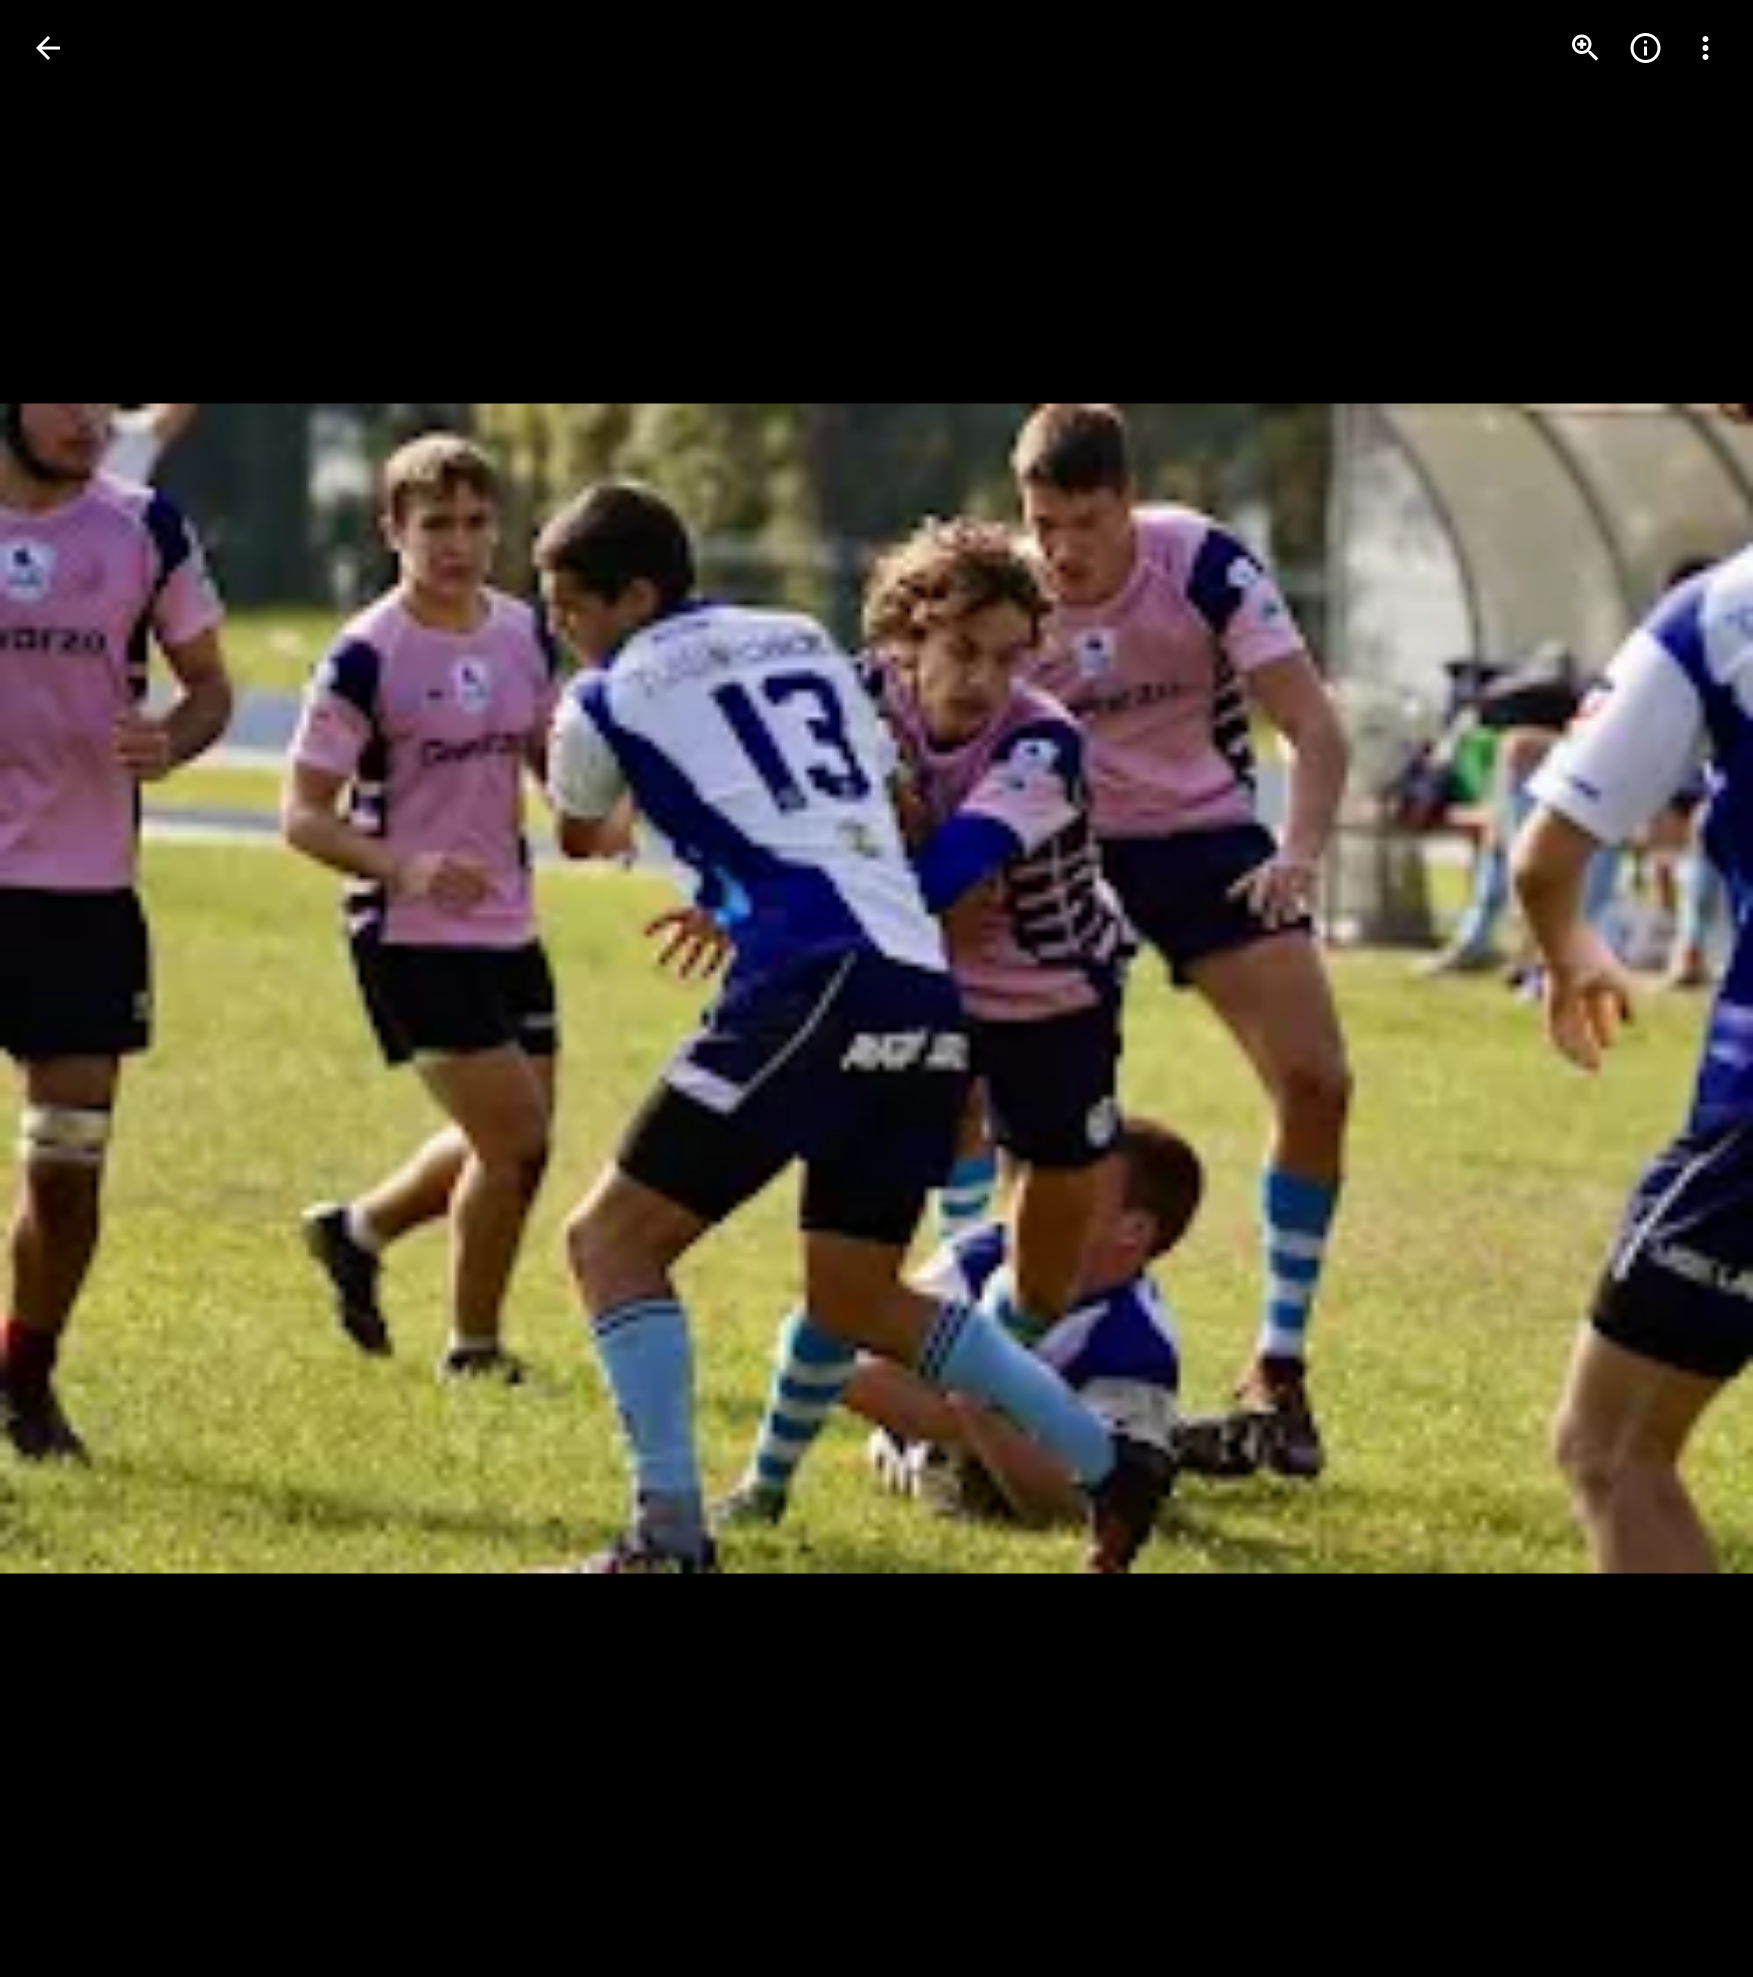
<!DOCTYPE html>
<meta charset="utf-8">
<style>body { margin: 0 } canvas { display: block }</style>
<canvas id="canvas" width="1753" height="1977"></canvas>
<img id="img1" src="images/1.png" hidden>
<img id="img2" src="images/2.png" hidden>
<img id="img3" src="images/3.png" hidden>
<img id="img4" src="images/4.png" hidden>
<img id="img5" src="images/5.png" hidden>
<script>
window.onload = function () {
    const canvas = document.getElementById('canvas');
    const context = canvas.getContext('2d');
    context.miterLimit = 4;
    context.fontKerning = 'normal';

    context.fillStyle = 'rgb(0, 0, 0)';
    context.fillRect(0, 0, 1753, 1977);
    context.drawImage(document.getElementById('img1'), 36, 36, 24, 24);
    context.drawImage(document.getElementById('img2'), 1572, 34, 27, 27);
    context.drawImage(document.getElementById('img3'), 1630, 33, 31, 30);
    context.drawImage(document.getElementById('img4'), 1702, 36, 7, 24);
    context.drawImage(document.getElementById('img5'), 0, 403, 1753, 1171);
};
</script>
